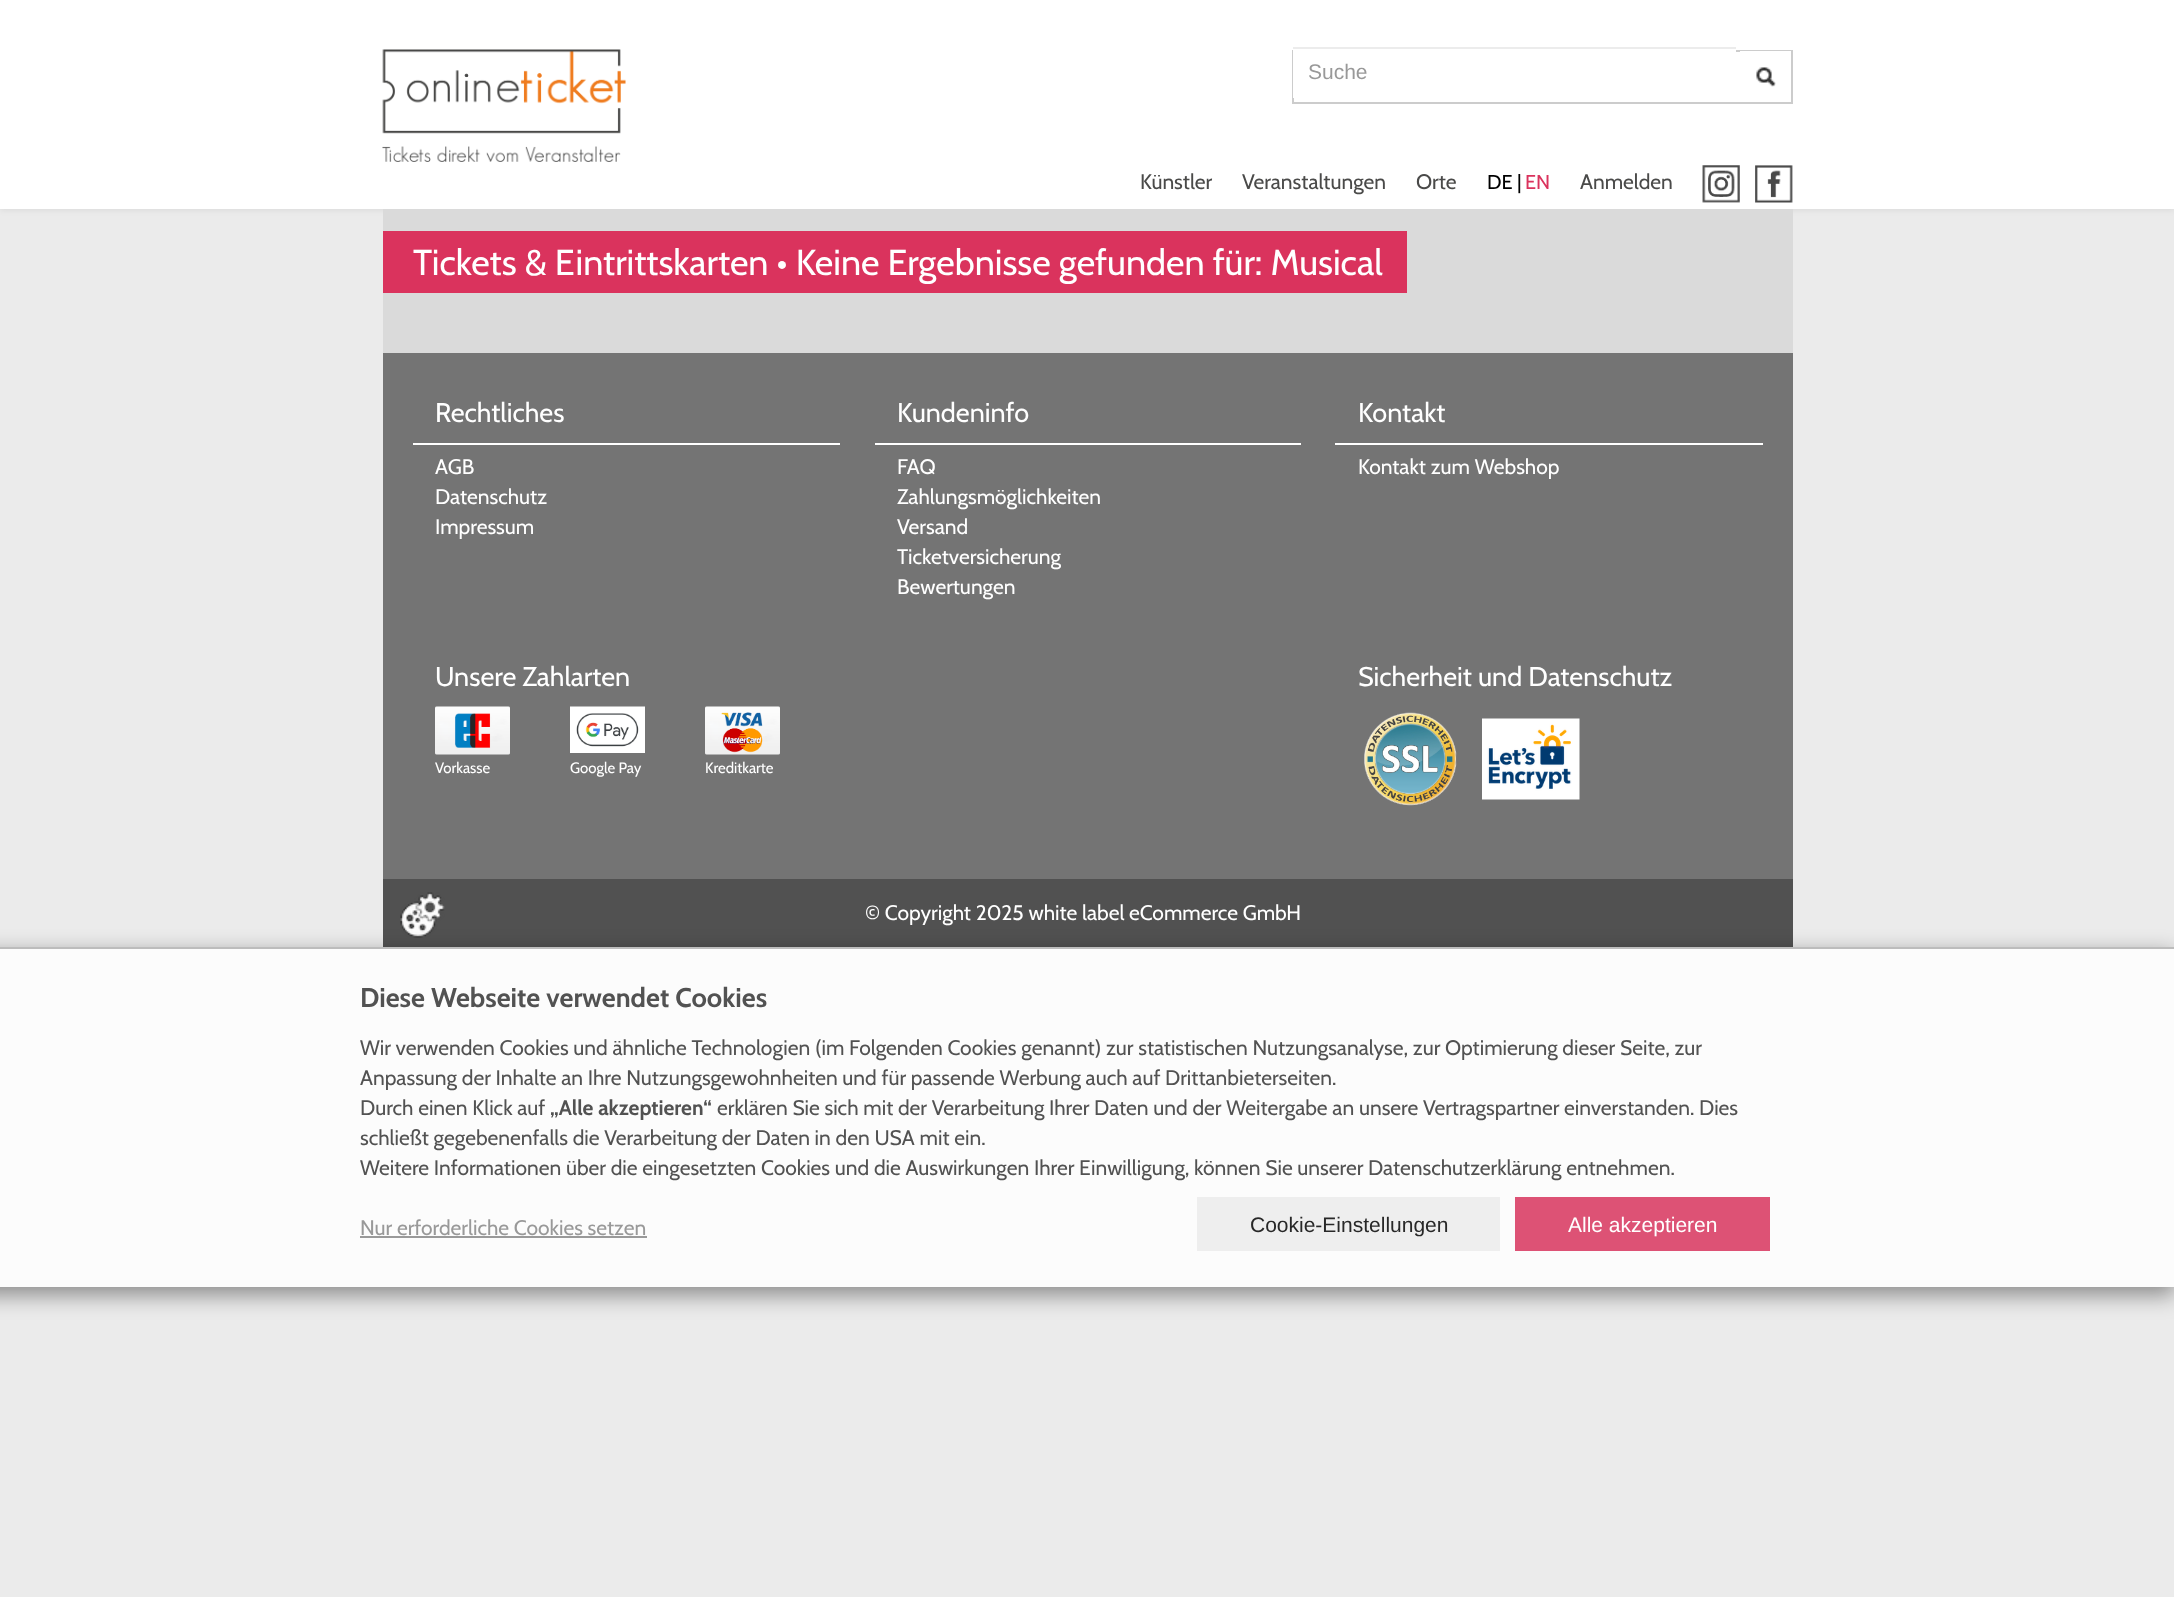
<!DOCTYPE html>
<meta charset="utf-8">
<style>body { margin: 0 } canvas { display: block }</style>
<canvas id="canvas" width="2174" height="1597"></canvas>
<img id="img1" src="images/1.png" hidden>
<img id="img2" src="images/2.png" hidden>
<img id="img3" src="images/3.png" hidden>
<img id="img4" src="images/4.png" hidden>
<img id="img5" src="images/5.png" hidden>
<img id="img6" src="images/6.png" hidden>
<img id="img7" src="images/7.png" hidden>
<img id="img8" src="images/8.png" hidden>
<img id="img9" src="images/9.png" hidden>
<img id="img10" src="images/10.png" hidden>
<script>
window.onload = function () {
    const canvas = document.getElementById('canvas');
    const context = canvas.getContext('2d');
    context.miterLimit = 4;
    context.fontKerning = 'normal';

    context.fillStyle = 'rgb(235, 235, 235)';
    context.fillRect(0, 0, 2174, 1597);
    context.fillStyle = 'rgba(0, 0, 0, 0.07)';
    context.filter = 'blur(3px)';
    context.beginPath();
    context.rect(0, 2, 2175, 208);
    context.fill();
    context.filter = 'none';
    context.fillStyle = 'rgb(255, 255, 255)';
    context.fillRect(0, 0, 2174, 209);
    context.drawImage(document.getElementById('img1'), 382, 49, 244, 113);
    context.strokeStyle = 'rgb(204, 204, 204)';
    context.lineWidth = 2;
    context.strokeRect(1293, 51, 499, 52);
    context.fillRect(1293, 50, 443, 48);
    context.fillStyle = 'rgb(236, 236, 236)';
    context.fillRect(1293, 47, 443, 2);
    context.fillStyle = 'rgb(255, 255, 255)';
    context.fillRect(1740, 51, 51, 1);
    context.drawImage(document.getElementById('img2'), 1756, 67, 20, 20);
    context.drawImage(document.getElementById('img3'), 1702, 165, 38, 38);
    context.drawImage(document.getElementById('img4'), 1755, 165, 38, 38);
    context.fillStyle = 'rgb(218, 218, 218)';
    context.fillRect(383, 209, 1410, 144);
    context.fillStyle = 'rgb(218, 51, 93)';
    context.fillRect(383, 231, 1024, 62);
    context.fillStyle = 'rgb(116, 116, 116)';
    context.fillRect(383, 353, 1410, 526);
    context.fillStyle = 'rgb(255, 255, 255)';
    context.fillRect(413, 443, 427, 2);
    context.fillRect(875, 443, 426, 2);
    context.fillRect(1335, 443, 428, 2);
    context.drawImage(document.getElementById('img5'), 435, 706, 75, 49);
    context.drawImage(document.getElementById('img6'), 570, 706, 75, 47);
    context.drawImage(document.getElementById('img7'), 705, 706, 75, 49);
    context.drawImage(document.getElementById('img8'), 1364, 712, 93, 94);
    context.drawImage(document.getElementById('img9'), 1482, 718, 98, 82);
    context.fillStyle = 'rgb(81, 81, 81)';
    context.fillRect(383, 879, 1410, 68);
    context.drawImage(document.getElementById('img10'), 400, 892, 45, 46);
    context.fillStyle = 'rgba(0, 0, 0, 0.41)';
    context.filter = 'blur(11px)';
    context.beginPath();
    context.rect(-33, 954, 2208, 341);
    context.fill();
    context.filter = 'none';
    context.fillStyle = 'rgb(252, 252, 252)';
    context.fillRect(0, 949, 2174, 338);
    context.fillStyle = 'rgb(188, 188, 188)';
    context.fillRect(0, 947, 2174, 2);
    context.fillStyle = 'rgb(153, 153, 153)';
    context.fillRect(360, 1236, 287, 2);
    context.fillStyle = 'rgb(238, 238, 238)';
    context.fillRect(1197, 1197, 303, 54);
    context.fillStyle = 'rgb(221, 82, 117)';
    context.fillRect(1515, 1197, 255, 54);
    context.font = '21px Liberation Sans';
    context.fillStyle = 'rgb(153, 153, 153)';
    context.fillText('Suche', 1308, 79);
    context.font = '21px Cabin';
    context.fillStyle = 'rgb(74, 74, 73)';
    context.fillText('Künstler', 1140, 189);
    context.fillText('Veranstaltungen', 1242, 189);
    context.fillText('Orte', 1416, 189);
    context.font = '20px Cabin';
    context.fillStyle = 'rgb(0, 0, 0)';
    context.fillText('DE |', 1487, 189);
    context.fillStyle = 'rgb(218, 51, 93)';
    context.fillText('EN', 1525, 189);
    context.font = '21px Cabin';
    context.fillStyle = 'rgb(74, 74, 73)';
    context.fillText('Anmelden', 1580, 189);
    context.font = '36px Cabin';
    context.fillStyle = 'rgb(255, 255, 255)';
    context.fillText('Tickets & Eintrittskarten • Keine Ergebnisse gefunden für: Musical', 413, 275);
    context.font = '27px Cabin';
    context.fillText('Rechtliches', 435, 422);
    context.font = '21px Cabin';
    context.fillText('AGB', 435, 474);
    context.fillText('Datenschutz', 435, 504);
    context.fillText('Impressum', 435, 534);
    context.font = '27px Cabin';
    context.fillText('Kundeninfo', 897, 422);
    context.font = '21px Cabin';
    context.fillText('FAQ', 897, 474);
    context.fillText('Zahlungsmöglichkeiten', 897, 504);
    context.fillText('Versand', 897, 534);
    context.fillText('Ticketversicherung', 897, 564);
    context.fillText('Bewertungen', 897, 594);
    context.font = '27px Cabin';
    context.fillText('Kontakt', 1358, 422);
    context.font = '21px Cabin';
    context.fillText('Kontakt zum Webshop', 1358, 474);
    context.font = '27px Cabin';
    context.fillText('Unsere Zahlarten', 435, 686);
    context.font = '15px Cabin';
    context.fillText('Vorkasse', 435, 773);
    context.fillText('Google Pay', 570, 773);
    context.fillText('Kreditkarte', 705, 773);
    context.font = '27px Cabin';
    context.fillText('Sicherheit und Datenschutz', 1358, 686);
    context.font = '21px Cabin';
    context.fillText('© Copyright 2025 white label eCommerce GmbH', 865, 920);
    context.font = 'bold 27px Cabin';
    context.fillStyle = 'rgb(82, 82, 82)';
    context.fillText('Diese Webseite verwendet Cookies', 360, 1007);
    context.font = '21px Cabin';
    context.fillText('Wir verwenden Cookies und ähnliche Technologien (im Folgenden Cookies genannt) zur statistischen Nutzungsanalyse, zur Optimierung dieser Seite, zur', 360, 1055);
    context.fillText('Anpassung der Inhalte an Ihre Nutzungsgewohnheiten und für passende Werbung auch auf Drittanbieterseiten.', 360, 1085);
    context.fillText('Durch einen Klick auf', 360, 1115);
    context.font = 'bold 21px Cabin';
    context.fillText('„Alle akzeptieren“', 550, 1115);
    context.font = '21px Cabin';
    context.fillText('erklären Sie sich mit der Verarbeitung Ihrer Daten und der Weitergabe an unsere Vertragspartner einverstanden. Dies', 717, 1115);
    context.fillText('schließt gegebenenfalls die Verarbeitung der Daten in den USA mit ein.', 360, 1145);
    context.fillText('Weitere Informationen über die eingesetzten Cookies und die Auswirkungen Ihrer Einwilligung, können Sie unserer Datenschutzerklärung entnehmen.', 360, 1175);
    context.fillStyle = 'rgb(153, 153, 153)';
    context.fillText('Nur erforderliche Cookies setzen', 360, 1235);
    context.font = '21px Liberation Sans';
    context.fillStyle = 'rgb(40, 40, 40)';
    context.fillText('Cookie-Einstellungen', 1250, 1232);
    context.fillStyle = 'rgb(255, 255, 255)';
    context.fillText('Alle akzeptieren', 1568, 1232);
};
</script>
